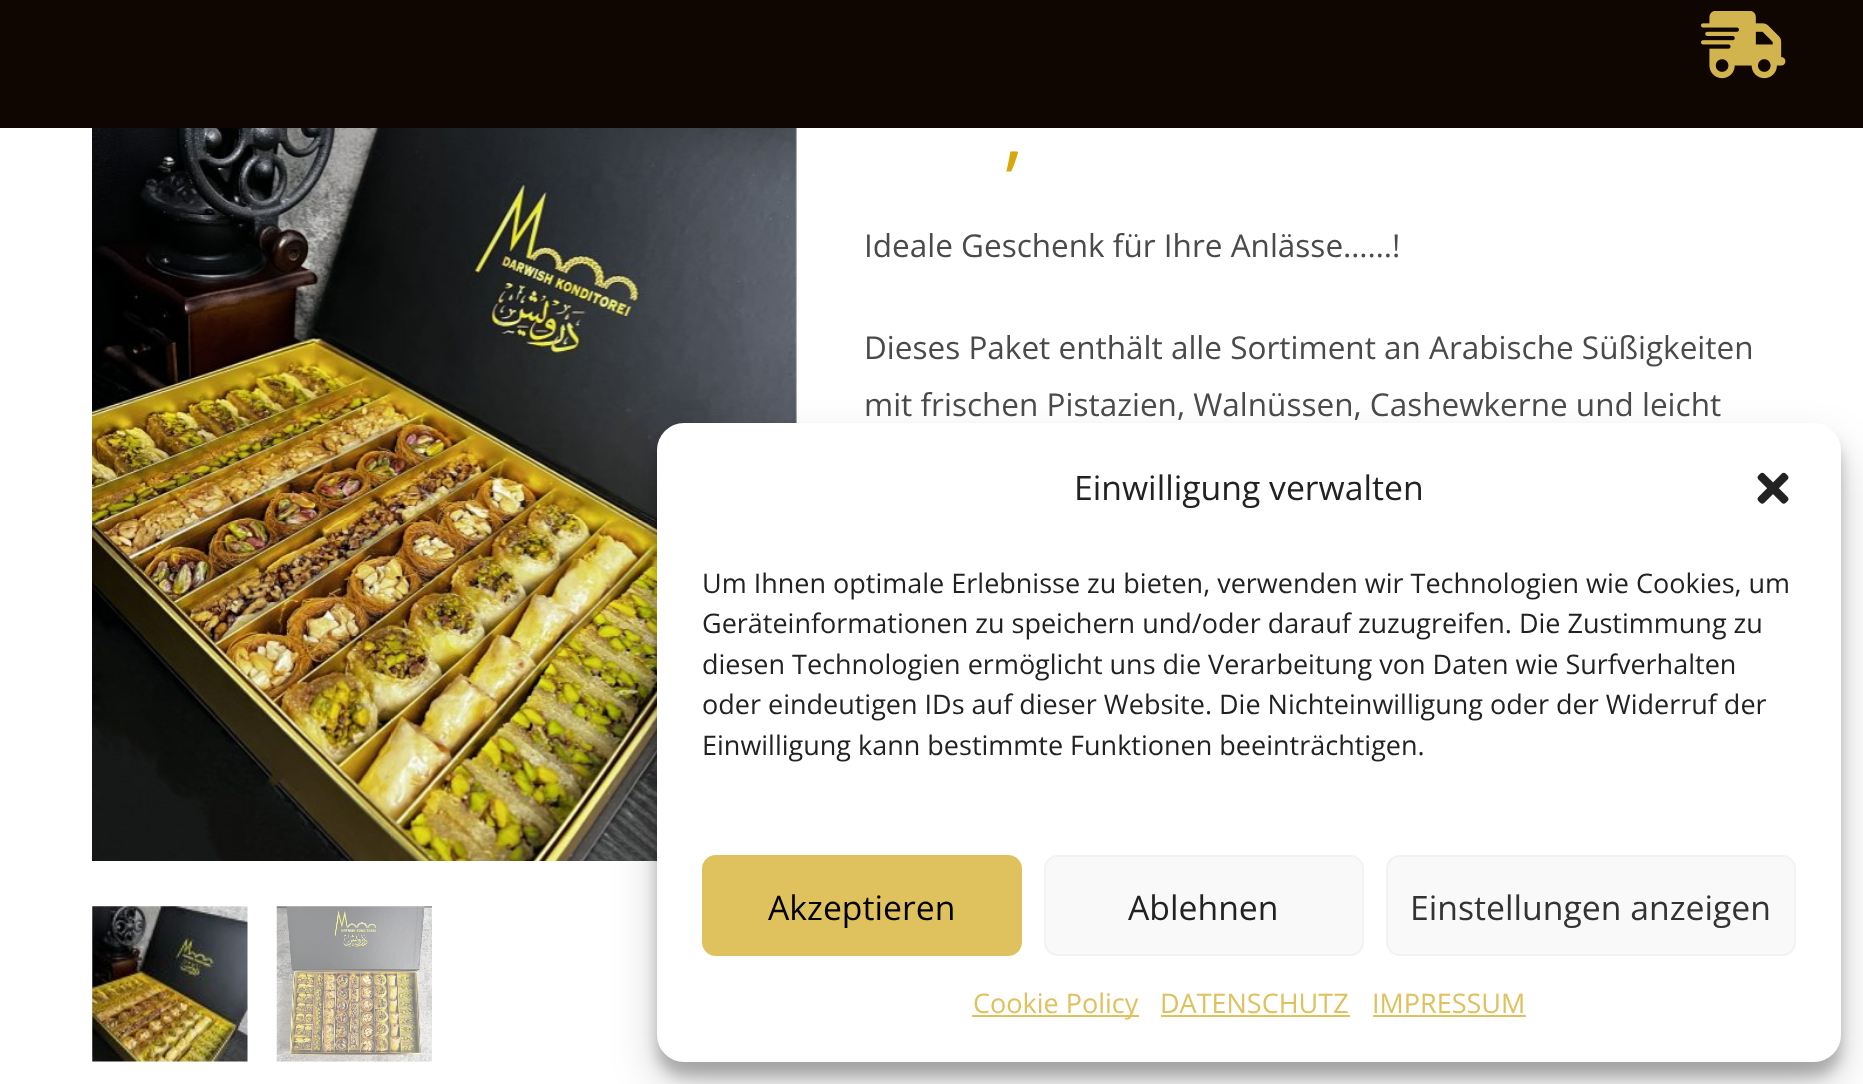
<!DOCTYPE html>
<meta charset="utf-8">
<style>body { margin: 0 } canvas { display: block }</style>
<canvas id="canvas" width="1863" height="1084"></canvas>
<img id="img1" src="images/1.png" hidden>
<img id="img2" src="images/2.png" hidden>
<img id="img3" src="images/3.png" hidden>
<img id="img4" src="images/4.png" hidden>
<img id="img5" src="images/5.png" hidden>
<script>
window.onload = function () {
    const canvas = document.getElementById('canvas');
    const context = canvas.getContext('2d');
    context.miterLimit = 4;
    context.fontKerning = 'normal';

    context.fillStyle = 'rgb(255, 255, 255)';
    context.fillRect(0, 0, 1863, 1084);
    context.fillStyle = 'rgb(15, 5, 1)';
    context.fillRect(0, 0, 1863, 128);
    context.drawImage(document.getElementById('img1'), 1701, 11, 85, 68);
    context.drawImage(document.getElementById('img2'), 92, 128, 705, 733);
    context.drawImage(document.getElementById('img3'), 92, 906, 156, 156);
    context.drawImage(document.getElementById('img4'), 276, 906, 156, 156);
    context.fillStyle = 'rgba(0, 0, 0, 0.23)';
    context.filter = 'blur(7px)';
    context.beginPath();
    context.roundRect(657, 437, 1184, 639, 27);
    context.fill();
    context.filter = 'none';
    context.fillStyle = 'rgba(0, 0, 0, 0.19)';
    context.filter = 'blur(22.5px)';
    context.beginPath();
    context.roundRect(657, 446, 1184, 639, 27);
    context.fill();
    context.filter = 'none';
    context.fillStyle = 'rgb(255, 255, 255)';
    context.beginPath();
    context.roundRect(657, 423, 1184, 639, 27);
    context.fill();
    context.drawImage(document.getElementById('img5'), 1757, 472, 32, 32);
    context.fillStyle = 'rgb(223, 193, 94)';
    context.beginPath();
    context.roundRect(703, 856, 318, 99, 13);
    context.fill();
    context.strokeStyle = 'rgb(223, 193, 94)';
    context.lineWidth = 2;
    context.stroke();
    context.fillStyle = 'rgb(249, 249, 249)';
    context.beginPath();
    context.roundRect(1045, 856, 318, 99, 13);
    context.fill();
    context.strokeStyle = 'rgb(242, 242, 242)';
    context.stroke();
    context.beginPath();
    context.roundRect(1387, 856, 408, 99, 13);
    context.fill();
    context.stroke();
    context.fillStyle = 'rgb(223, 193, 94)';
    context.fillRect(972, 1015, 167, 2);
    context.fillRect(1161, 1015, 189, 2);
    context.fillRect(1373, 1015, 153, 2);
    context.font = '81px Open Sans';
    context.fillStyle = 'rgb(215, 167, 14)';
    context.fillText(',', 1003, 161);
    context.font = '31.5px Open Sans';
    context.fillStyle = 'rgb(74, 74, 74)';
    context.fillText('Ideale Geschenk für Ihre Anlässe……!', 864, 257);
    context.fillText('Dieses Paket enthält alle Sortiment an Arabische Süßigkeiten', 864, 359);
    context.fillText('mit frischen Pistazien, Walnüssen, Cashewkerne und leicht', 864, 416);
    context.font = '33.75px Open Sans';
    context.fillStyle = 'rgb(34, 34, 34)';
    context.fillText('Einwilligung verwalten', 1074, 500);
    context.font = '27px Open Sans';
    context.fillText('Um Ihnen optimale Erlebnisse zu bieten, verwenden wir Technologien wie Cookies, um', 702, 593);
    context.fillText('Geräteinformationen zu speichern und/oder darauf zuzugreifen. Die Zustimmung zu', 702, 633);
    context.fillText('diesen Technologien ermöglicht uns die Verarbeitung von Daten wie Surfverhalten', 702, 674);
    context.fillText('oder eindeutigen IDs auf dieser Website. Die Nichteinwilligung oder der Widerruf der', 702, 714);
    context.fillText('Einwilligung kann bestimmte Funktionen beeinträchtigen.', 702, 755);
    context.font = '33.75px Open Sans';
    context.fillStyle = 'rgb(0, 0, 0)';
    context.fillText('Akzeptieren', 768, 920);
    context.fillStyle = 'rgb(34, 34, 34)';
    context.fillText('Ablehnen', 1128, 920);
    context.fillStyle = 'rgb(51, 51, 51)';
    context.fillText('Einstellungen anzeigen', 1410, 920);
    context.font = '27px Open Sans';
    context.fillStyle = 'rgb(223, 193, 94)';
    context.fillText('Cookie Policy', 973, 1013);
    context.fillText('DATENSCHUTZ', 1160, 1013);
    context.fillText('IMPRESSUM', 1372, 1013);
};
</script>
